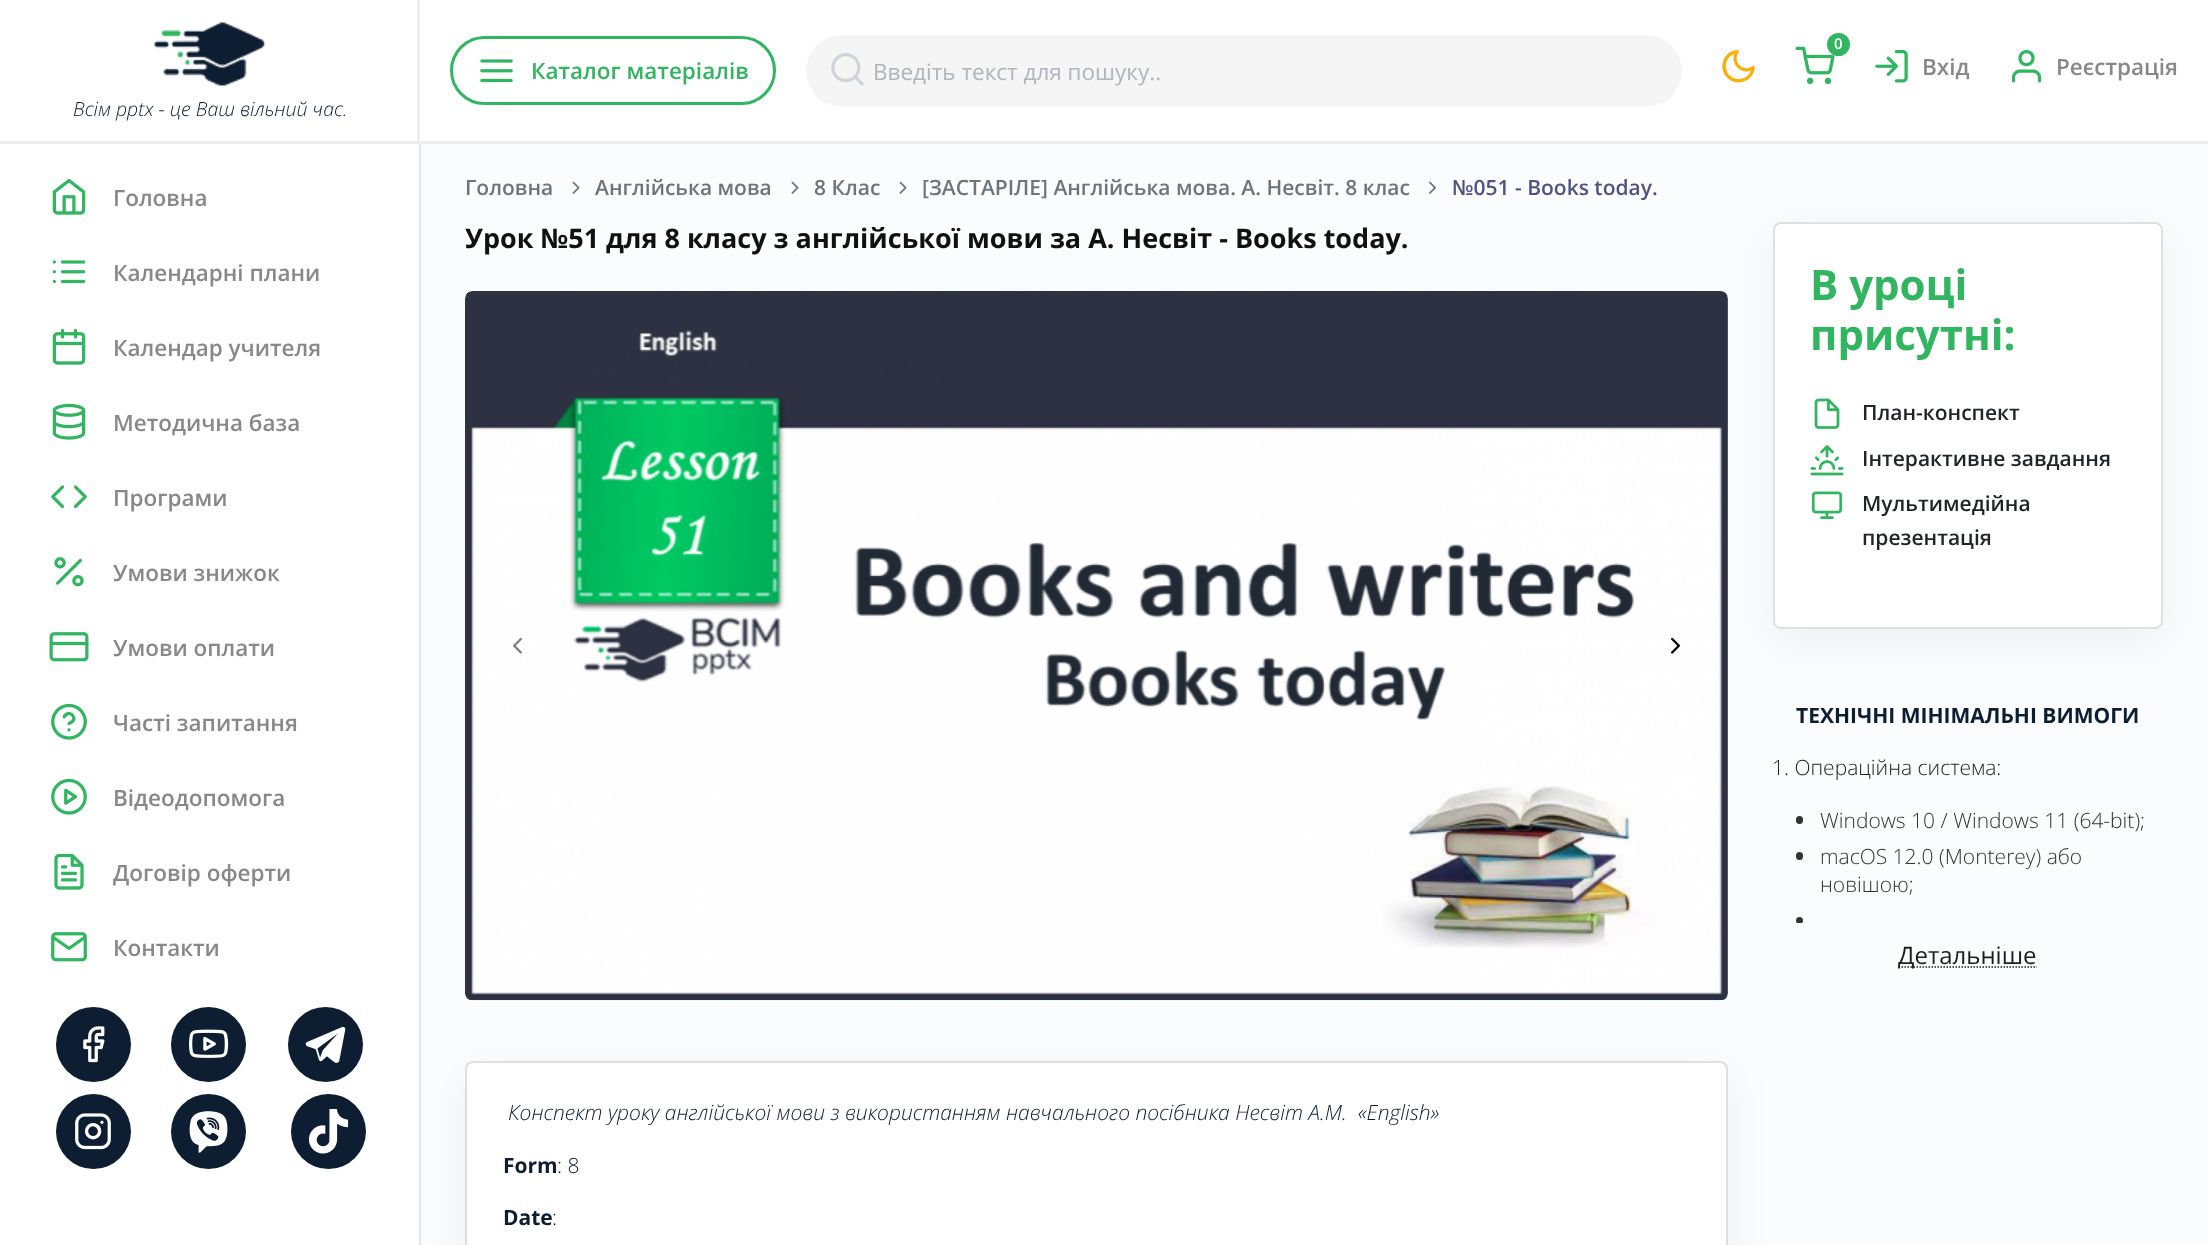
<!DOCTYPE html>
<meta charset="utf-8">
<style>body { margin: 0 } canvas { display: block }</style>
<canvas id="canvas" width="2208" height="1245"></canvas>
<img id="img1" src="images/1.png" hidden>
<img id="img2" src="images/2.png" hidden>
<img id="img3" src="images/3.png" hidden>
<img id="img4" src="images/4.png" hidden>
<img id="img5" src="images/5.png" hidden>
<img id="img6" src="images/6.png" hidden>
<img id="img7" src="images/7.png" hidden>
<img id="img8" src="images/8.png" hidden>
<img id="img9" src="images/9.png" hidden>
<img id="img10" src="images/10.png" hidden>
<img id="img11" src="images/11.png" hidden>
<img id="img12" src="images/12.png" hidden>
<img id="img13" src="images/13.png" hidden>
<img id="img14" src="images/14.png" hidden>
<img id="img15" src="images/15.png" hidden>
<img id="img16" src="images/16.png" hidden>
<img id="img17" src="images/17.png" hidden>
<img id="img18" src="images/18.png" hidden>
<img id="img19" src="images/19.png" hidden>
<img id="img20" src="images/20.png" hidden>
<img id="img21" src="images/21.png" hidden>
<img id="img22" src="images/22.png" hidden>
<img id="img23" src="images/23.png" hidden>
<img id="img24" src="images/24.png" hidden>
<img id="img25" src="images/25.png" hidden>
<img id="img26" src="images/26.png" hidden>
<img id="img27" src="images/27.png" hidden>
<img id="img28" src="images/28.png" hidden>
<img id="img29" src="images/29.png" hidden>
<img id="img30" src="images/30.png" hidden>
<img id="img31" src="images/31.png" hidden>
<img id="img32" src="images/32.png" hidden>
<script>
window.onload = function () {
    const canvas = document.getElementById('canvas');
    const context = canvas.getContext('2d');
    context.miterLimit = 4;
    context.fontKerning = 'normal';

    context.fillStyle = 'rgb(251, 252, 254)';
    context.fillRect(0, 0, 2208, 1245);
    context.fillStyle = 'rgba(0, 0, 0, 0.05)';
    context.filter = 'blur(22.5px)';
    context.beginPath();
    context.roundRect(465, 1073, 1263, 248, 8);
    context.fill();
    context.filter = 'none';
    context.fillStyle = 'rgb(255, 255, 255)';
    context.fillRect(0, 144, 419, 1101);
    context.fillStyle = 'rgb(228, 228, 228)';
    context.fillRect(419, 144, 2, 1101);
    context.fillStyle = 'rgb(255, 255, 255)';
    context.fillRect(0, 0, 417, 141);
    context.fillStyle = 'rgb(238, 238, 238)';
    context.fillRect(0, 141, 2208, 3);
    context.drawImage(document.getElementById('img1'), 154, 22, 112, 64);
    context.drawImage(document.getElementById('img2'), 52, 178, 34, 37);
    context.drawImage(document.getElementById('img3'), 52, 260, 34, 24);
    context.drawImage(document.getElementById('img4'), 52, 328, 34, 37);
    context.drawImage(document.getElementById('img5'), 52, 403, 34, 37);
    context.drawImage(document.getElementById('img6'), 51, 485, 36, 24);
    context.drawImage(document.getElementById('img7'), 54, 557, 30, 30);
    context.drawImage(document.getElementById('img8'), 49, 632, 40, 30);
    context.drawImage(document.getElementById('img9'), 51, 703, 36, 37);
    context.drawImage(document.getElementById('img10'), 51, 778, 36, 37);
    context.drawImage(document.getElementById('img11'), 54, 853, 30, 37);
    context.drawImage(document.getElementById('img12'), 51, 932, 36, 30);
    context.fillStyle = 'rgb(14, 30, 50)';
    context.beginPath();
    context.arc(93.5, 1044.5, 37.5, 0, 2 * Math.PI);
    context.fill();
    context.drawImage(document.getElementById('img13'), 83, 1026, 22, 37);
    context.beginPath();
    context.arc(208.5, 1044.5, 37.5, 0, 2 * Math.PI);
    context.fill();
    context.drawImage(document.getElementById('img14'), 189, 1029, 40, 29);
    context.beginPath();
    context.arc(325.5, 1044.5, 37.5, 0, 2 * Math.PI);
    context.fill();
    context.drawImage(document.getElementById('img15'), 305, 1026, 41, 37);
    context.beginPath();
    context.arc(93.5, 1131.5, 37.5, 0, 2 * Math.PI);
    context.fill();
    context.drawImage(document.getElementById('img16'), 75, 1113, 36, 37);
    context.beginPath();
    context.arc(208.5, 1131.5, 37.5, 0, 2 * Math.PI);
    context.fill();
    context.drawImage(document.getElementById('img17'), 189, 1111, 39, 42);
    context.beginPath();
    context.arc(328.5, 1131.5, 37.5, 0, 2 * Math.PI);
    context.fill();
    context.drawImage(document.getElementById('img18'), 308, 1109, 41, 45);
    context.fillStyle = 'rgb(255, 255, 255)';
    context.fillRect(420, 0, 1788, 141);
    context.fillStyle = 'rgb(238, 238, 238)';
    context.fillRect(417, 0, 3, 144);
    context.beginPath();
    context.roundRect(451.5, 37.5, 323, 66, 33);
    context.strokeStyle = 'rgb(50, 181, 97)';
    context.lineWidth = 3;
    context.stroke();
    context.drawImage(document.getElementById('img19'), 480, 59, 33, 24);
    context.fillStyle = 'rgb(245, 245, 245)';
    context.beginPath();
    context.roundRect(806, 35, 876, 72, 36);
    context.fill();
    context.drawImage(document.getElementById('img20'), 831, 53, 33, 33);
    context.drawImage(document.getElementById('img21'), 1795, 46, 40, 39);
    context.fillStyle = 'rgb(50, 181, 97)';
    context.beginPath();
    context.arc(1838.5, 44.5, 11.5, 0, 2 * Math.PI);
    context.fill();
    context.drawImage(document.getElementById('img22'), 1722, 50, 33, 33);
    context.drawImage(document.getElementById('img23'), 1875, 50, 33, 33);
    context.drawImage(document.getElementById('img24'), 2011, 50, 31, 33);
    context.drawImage(document.getElementById('img25'), 572, 181, 8, 13);
    context.drawImage(document.getElementById('img25'), 791, 181, 8, 13);
    context.drawImage(document.getElementById('img25'), 899, 181, 8, 13);
    context.drawImage(document.getElementById('img26'), 1429, 181, 7, 13);
    context.fillStyle = 'rgba(0, 0, 0, 0.05)';
    context.filter = 'blur(22.5px)';
    context.beginPath();
    context.roundRect(1773, 234, 390, 407, 8);
    context.fill();
    context.filter = 'none';
    context.fillStyle = 'rgb(228, 247, 254)';
    context.beginPath();
    context.roundRect(465, 291, 1263, 710, 8);
    context.fill();
    context.drawImage(document.getElementById('img27'), 465, 291, 1263, 709);
    context.drawImage(document.getElementById('img28'), 513, 637, 9, 17);
    context.drawImage(document.getElementById('img29'), 1671, 637, 9, 17);
    context.fillStyle = 'rgb(255, 255, 255)';
    context.beginPath();
    context.roundRect(466, 1062, 1261, 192, 7);
    context.fill();
    context.strokeStyle = 'rgb(223, 223, 223)';
    context.lineWidth = 2;
    context.stroke();
    context.beginPath();
    context.roundRect(1773, 222, 390, 407, 8);
    context.fill();
    context.beginPath();
    context.roundRect(1774, 223, 388, 405, 7);
    context.strokeStyle = 'rgba(0, 0, 0, 0.12)';
    context.stroke();
    context.drawImage(document.getElementById('img30'), 1814, 398, 26, 31);
    context.drawImage(document.getElementById('img31'), 1810, 445, 34, 31);
    context.drawImage(document.getElementById('img32'), 1811, 491, 32, 28);
    context.fillStyle = 'rgb(51, 51, 51)';
    context.beginPath();
    context.roundRect(1796, 816, 7, 8, 3.5);
    context.fill();
    context.beginPath();
    context.roundRect(1796, 852, 7, 8, 3.5);
    context.fill();
    context.save();
    context.beginPath();
    context.rect(1773, 629, 390, 294);
    context.clip();
    context.beginPath();
    context.arc(1799.5, 920.5, 3.5, 0, 2 * Math.PI);
    context.fill();
    context.restore();
    context.beginPath();
    context.moveTo(1898.5, 967);
    context.lineTo(2037, 967);
    context.strokeStyle = 'rgb(28, 30, 31)';
    context.lineWidth = 1.5;
    context.setLineDash([1.5, 1.5]);
    context.stroke();
    context.font = 'italic 300 19.5px Open Sans';
    context.fillStyle = 'rgb(14, 30, 50)';
    context.fillText('Всім pptx - це Ваш вільний час.', 73, 116);
    context.font = '600 22.5px Open Sans';
    context.fillStyle = 'rgb(136, 136, 136)';
    context.fillText('Головна', 113, 206);
    context.fillText('Календарні плани', 113, 281);
    context.fillText('Календар учителя', 113, 356);
    context.fillText('Методична база', 113, 431);
    context.fillText('Програми', 113, 506);
    context.fillText('Умови знижок', 113, 581);
    context.fillText('Умови оплати', 113, 656);
    context.fillText('Часті запитання', 113, 731);
    context.fillText('Відеодопомога', 113, 806);
    context.fillText('Договір оферти', 113, 881);
    context.fillText('Контакти', 113, 956);
    context.fillStyle = 'rgb(50, 181, 97)';
    context.fillText('Каталог матеріалів', 531, 79);
    context.font = '22.5px Open Sans';
    context.fillStyle = 'rgb(173, 181, 189)';
    context.fillText('Введіть текст для пошуку..', 873, 80);
    context.font = '600 15px Open Sans';
    context.fillStyle = 'rgb(255, 255, 255)';
    context.fillText('0', 1834, 49);
    context.font = '600 22.5px Open Sans';
    context.fillStyle = 'rgb(136, 136, 136)';
    context.fillText('Вхід', 1922, 75);
    context.fillText('Реєстрація', 2056, 75);
    context.font = '600 21px Open Sans';
    context.fillStyle = 'rgb(108, 117, 125)';
    context.fillText('Головна', 465, 195);
    context.fillText('Англійська мова', 595, 195);
    context.fillText('8 Клас', 814, 195);
    context.fillText('[ЗАСТАРІЛЕ] Англійська мова. А. Несвіт. 8 клас', 922, 195);
    context.fillStyle = 'rgb(81, 81, 132)';
    context.fillText('№051 - Books today.', 1452, 195);
    context.font = 'bold 27px Open Sans';
    context.fillStyle = 'rgb(17, 17, 17)';
    context.fillText('Урок №51 для 8 класу з англійської мови за А. Несвіт - Books today.', 465, 248);
    context.font = 'italic 300 21px Open Sans';
    context.fillStyle = 'rgb(14, 30, 50)';
    context.fillText('Конспект уроку aнглійської мови з використанням навчального посібника Несвіт А.М.', 508, 1120);
    context.fillText('«English»', 1358, 1120);
    context.font = 'bold 21px Open Sans';
    context.fillText('Form', 503, 1173);
    context.font = '300 21px Open Sans';
    context.fillText(': 8', 557, 1173);
    context.font = 'bold 21px Open Sans';
    context.fillText('Date', 503, 1225);
    context.font = '300 21px Open Sans';
    context.fillText(':', 552, 1225);
    context.font = 'bold 42px Open Sans';
    context.fillStyle = 'rgb(50, 181, 97)';
    context.fillText('В уроці', 1810, 300);
    context.fillText('присутні:', 1810, 350);
    context.font = '600 21px Open Sans';
    context.fillStyle = 'rgb(33, 37, 41)';
    context.fillText('План-конспект', 1862, 420);
    context.fillText('Інтерактивне завдання', 1862, 466);
    context.fillText('Мультимедійна', 1862, 511);
    context.fillText('презентація', 1862, 545);
    context.font = 'bold 21px Open Sans';
    context.fillStyle = 'rgb(14, 30, 50)';
    context.fillText('ТЕХНІЧНІ МІНІМАЛЬНІ ВИМОГИ', 1796, 723);
    context.font = '300 21px Open Sans';
    context.fillStyle = 'rgb(33, 37, 41)';
    context.fillText('1. Операційна система:', 1772, 775);
    context.fillStyle = 'rgb(51, 51, 51)';
    context.fillText('Windows 10 / Windows 11 (64-bit);', 1820, 828);
    context.fillText('macOS 12.0 (Monterey) або', 1820, 864);
    context.fillText('новішою;', 1820, 892);
    context.font = '24px Open Sans';
    context.fillStyle = 'rgb(28, 30, 31)';
    context.fillText('Детальніше', 1898, 964);
};
</script>
